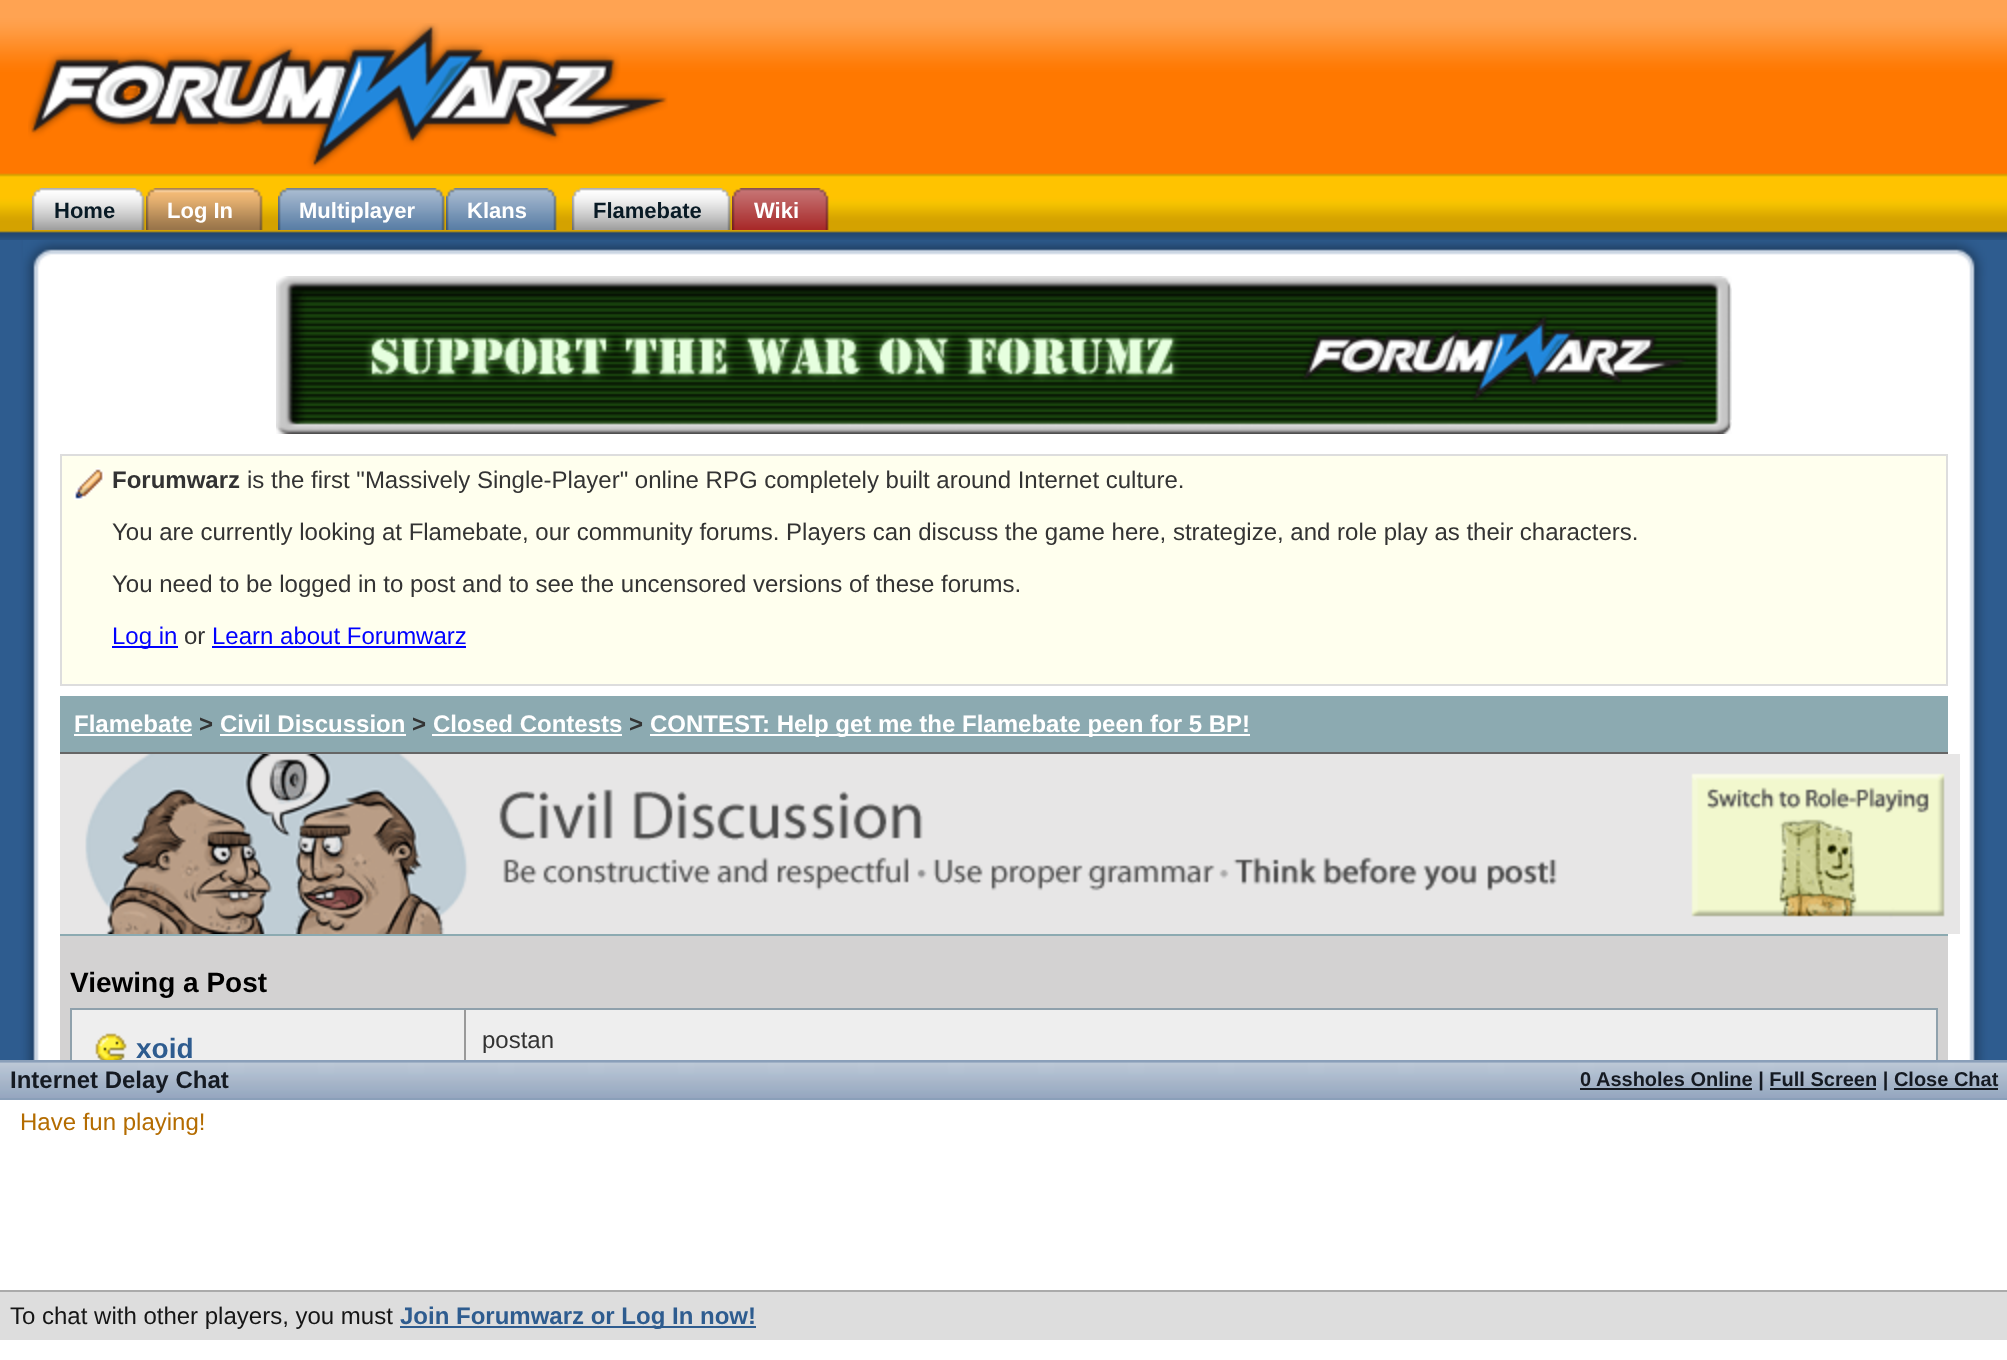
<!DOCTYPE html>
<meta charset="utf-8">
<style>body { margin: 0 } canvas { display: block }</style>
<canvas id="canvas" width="2007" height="1360"></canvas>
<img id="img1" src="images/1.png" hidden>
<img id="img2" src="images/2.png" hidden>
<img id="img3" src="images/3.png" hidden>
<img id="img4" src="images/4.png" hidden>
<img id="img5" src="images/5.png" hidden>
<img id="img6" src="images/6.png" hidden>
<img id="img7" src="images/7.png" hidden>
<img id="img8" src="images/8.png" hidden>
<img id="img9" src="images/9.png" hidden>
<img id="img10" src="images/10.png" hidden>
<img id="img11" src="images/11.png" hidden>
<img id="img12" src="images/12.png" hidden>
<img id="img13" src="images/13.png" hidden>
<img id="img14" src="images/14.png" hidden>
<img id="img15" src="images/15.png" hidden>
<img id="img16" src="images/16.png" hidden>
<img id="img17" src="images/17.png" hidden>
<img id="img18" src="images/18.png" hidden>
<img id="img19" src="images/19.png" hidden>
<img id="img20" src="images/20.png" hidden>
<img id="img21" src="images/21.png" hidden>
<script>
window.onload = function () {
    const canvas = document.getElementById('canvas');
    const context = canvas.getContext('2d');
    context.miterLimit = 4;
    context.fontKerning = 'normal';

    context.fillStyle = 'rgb(46, 92, 143)';
    context.fillRect(0, 0, 2007, 1360);
    context.drawImage(document.getElementById('img1'), 0, 0, 2007, 240);
    context.drawImage(document.getElementById('img2'), 28, 23, 640, 146);
    context.drawImage(document.getElementById('img3'), 32, 188, 12, 42);
    context.drawImage(document.getElementById('img4'), 44, 188, 101, 42);
    context.drawImage(document.getElementById('img5'), 146, 188, 12, 42);
    context.drawImage(document.getElementById('img6'), 158, 188, 105, 42);
    context.drawImage(document.getElementById('img7'), 278, 188, 12, 42);
    context.drawImage(document.getElementById('img8'), 290, 188, 155, 42);
    context.drawImage(document.getElementById('img7'), 446, 188, 12, 42);
    context.drawImage(document.getElementById('img9'), 458, 188, 99, 42);
    context.drawImage(document.getElementById('img3'), 572, 188, 12, 42);
    context.drawImage(document.getElementById('img10'), 584, 188, 147, 42);
    context.drawImage(document.getElementById('img11'), 732, 188, 12, 42);
    context.drawImage(document.getElementById('img12'), 744, 188, 85, 42);
    context.fillStyle = 'rgb(255, 255, 255)';
    context.fillRect(39, 267, 1930, 793);
    context.drawImage(document.getElementById('img13'), 20, 240, 19, 820);
    context.drawImage(document.getElementById('img14'), 23, 240, 1934, 27);
    context.drawImage(document.getElementById('img15'), 1957, 240, 31, 36);
    context.drawImage(document.getElementById('img16'), 1969, 276, 19, 784);
    context.drawImage(document.getElementById('img17'), 276, 276, 1456, 158);
    context.fillStyle = 'rgb(255, 255, 238)';
    context.fillRect(62, 456, 1884, 228);
    context.drawImage(document.getElementById('img18'), 73, 468, 31, 32);
    context.strokeStyle = 'rgb(221, 221, 221)';
    context.lineWidth = 2;
    context.strokeRect(61, 455, 1886, 230);
    context.fillStyle = 'rgb(0, 0, 255)';
    context.fillRect(112, 646, 66, 2);
    context.fillRect(212, 646, 254, 2);
    context.fillStyle = 'rgb(140, 170, 177)';
    context.fillRect(60, 696, 1888, 56);
    context.fillStyle = 'rgb(102, 102, 102)';
    context.fillRect(60, 752, 1888, 2);
    context.fillStyle = 'rgb(255, 255, 255)';
    context.fillRect(74, 734, 118, 2);
    context.fillRect(220, 734, 186, 2);
    context.fillRect(432, 734, 190, 2);
    context.fillRect(650, 734, 600, 2);
    context.fillStyle = 'rgb(231, 230, 230)';
    context.fillRect(60, 754, 25, 180);
    context.drawImage(document.getElementById('img19'), 85, 754, 1875, 180);
    context.fillStyle = 'rgb(211, 210, 210)';
    context.fillRect(60, 936, 1888, 124);
    context.fillStyle = 'rgb(140, 170, 177)';
    context.fillRect(60, 934, 1888, 2);
    context.strokeStyle = 'rgb(143, 161, 172)';
    context.strokeRect(71, 1009, 1866, 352);
    context.fillStyle = 'rgb(238, 238, 238)';
    context.fillRect(72, 1010, 1864, 50);
    context.fillStyle = 'rgb(153, 153, 153)';
    context.fillRect(464, 1010, 2, 50);
    context.drawImage(document.getElementById('img20'), 95, 1033, 32, 27);
    context.fillStyle = 'rgb(255, 255, 255)';
    context.fillRect(0, 1100, 2007, 260);
    context.drawImage(document.getElementById('img21'), 0, 1062, 2007, 36);
    context.fillStyle = 'rgb(138, 159, 185)';
    context.fillRect(0, 1060, 2007, 2);
    context.fillRect(0, 1098, 2007, 2);
    context.fillStyle = 'rgb(21, 26, 34)';
    context.fillRect(1580, 1088, 172, 2);
    context.fillRect(1770, 1088, 106, 2);
    context.fillRect(1894, 1088, 104, 2);
    context.fillStyle = 'rgb(221, 221, 221)';
    context.fillRect(0, 1292, 2007, 48);
    context.fillStyle = 'rgb(170, 170, 170)';
    context.fillRect(0, 1290, 2007, 2);
    context.fillStyle = 'rgb(46, 92, 143)';
    context.fillRect(400, 1326, 356, 2);
    context.font = 'bold 22px Liberation Sans';
    context.fillStyle = 'rgb(8, 26, 37)';
    context.fillText('Home', 54, 218);
    context.fillStyle = 'rgb(255, 255, 255)';
    context.fillText('Log In', 167, 218);
    context.fillText('Multiplayer', 299, 218);
    context.fillText('Klans', 467, 218);
    context.fillStyle = 'rgb(8, 26, 37)';
    context.fillText('Flamebate', 593, 218);
    context.fillStyle = 'rgb(255, 255, 255)';
    context.fillText('Wiki', 754, 218);
    context.font = 'bold 24px Liberation Sans';
    context.fillStyle = 'rgb(51, 51, 51)';
    context.fillText('Forumwarz', 112, 488);
    context.font = '24px Liberation Sans';
    context.fillText('is the first "Massively Single-Player" online RPG completely built around Internet culture.', 247, 488);
    context.fillText('You are currently looking at Flamebate, our community forums. Players can discuss the game here, strategize, and role play as their characters.', 112, 540);
    context.fillText('You need to be logged in to post and to see the uncensored versions of these forums.', 112, 592);
    context.fillStyle = 'rgb(0, 0, 255)';
    context.fillText('Log in', 112, 644);
    context.fillStyle = 'rgb(51, 51, 51)';
    context.fillText('or', 184, 644);
    context.fillStyle = 'rgb(0, 0, 255)';
    context.fillText('Learn about Forumwarz', 212, 644);
    context.font = 'bold 24px Liberation Sans';
    context.fillStyle = 'rgb(255, 255, 255)';
    context.fillText('Flamebate', 74, 732);
    context.fillStyle = 'rgb(51, 51, 51)';
    context.fillText('>', 199, 732);
    context.fillStyle = 'rgb(255, 255, 255)';
    context.fillText('Civil Discussion', 220, 732);
    context.fillStyle = 'rgb(51, 51, 51)';
    context.fillText('>', 412, 732);
    context.fillStyle = 'rgb(255, 255, 255)';
    context.fillText('Closed Contests', 433, 732);
    context.fillStyle = 'rgb(51, 51, 51)';
    context.fillText('>', 629, 732);
    context.fillStyle = 'rgb(255, 255, 255)';
    context.fillText('CONTEST: Help get me the Flamebate peen for 5 BP!', 650, 732);
    context.font = 'bold 28px Liberation Sans';
    context.fillStyle = 'rgb(0, 0, 0)';
    context.fillText('Viewing a Post', 70, 992);
    context.fillStyle = 'rgb(46, 92, 143)';
    context.fillText('xoid', 136, 1058);
    context.font = '24px Liberation Sans';
    context.fillStyle = 'rgb(51, 51, 51)';
    context.fillText('postan', 482, 1048);
    context.font = 'bold 24px Liberation Sans';
    context.fillStyle = 'rgb(21, 26, 34)';
    context.fillText('Internet Delay Chat', 10, 1088);
    context.font = 'bold 20px Liberation Sans';
    context.fillText('0 Assholes Online | Full Screen | Close Chat', 1580, 1086);
    context.font = '24px Liberation Sans';
    context.fillStyle = 'rgb(180, 108, 0)';
    context.fillText('Have fun playing!', 20, 1130);
    context.fillStyle = 'rgb(21, 21, 21)';
    context.fillText('To chat with other players, you must', 10, 1324);
    context.font = 'bold 24px Liberation Sans';
    context.fillStyle = 'rgb(46, 92, 143)';
    context.fillText('Join Forumwarz or Log In now!', 400, 1324);
};
</script>
